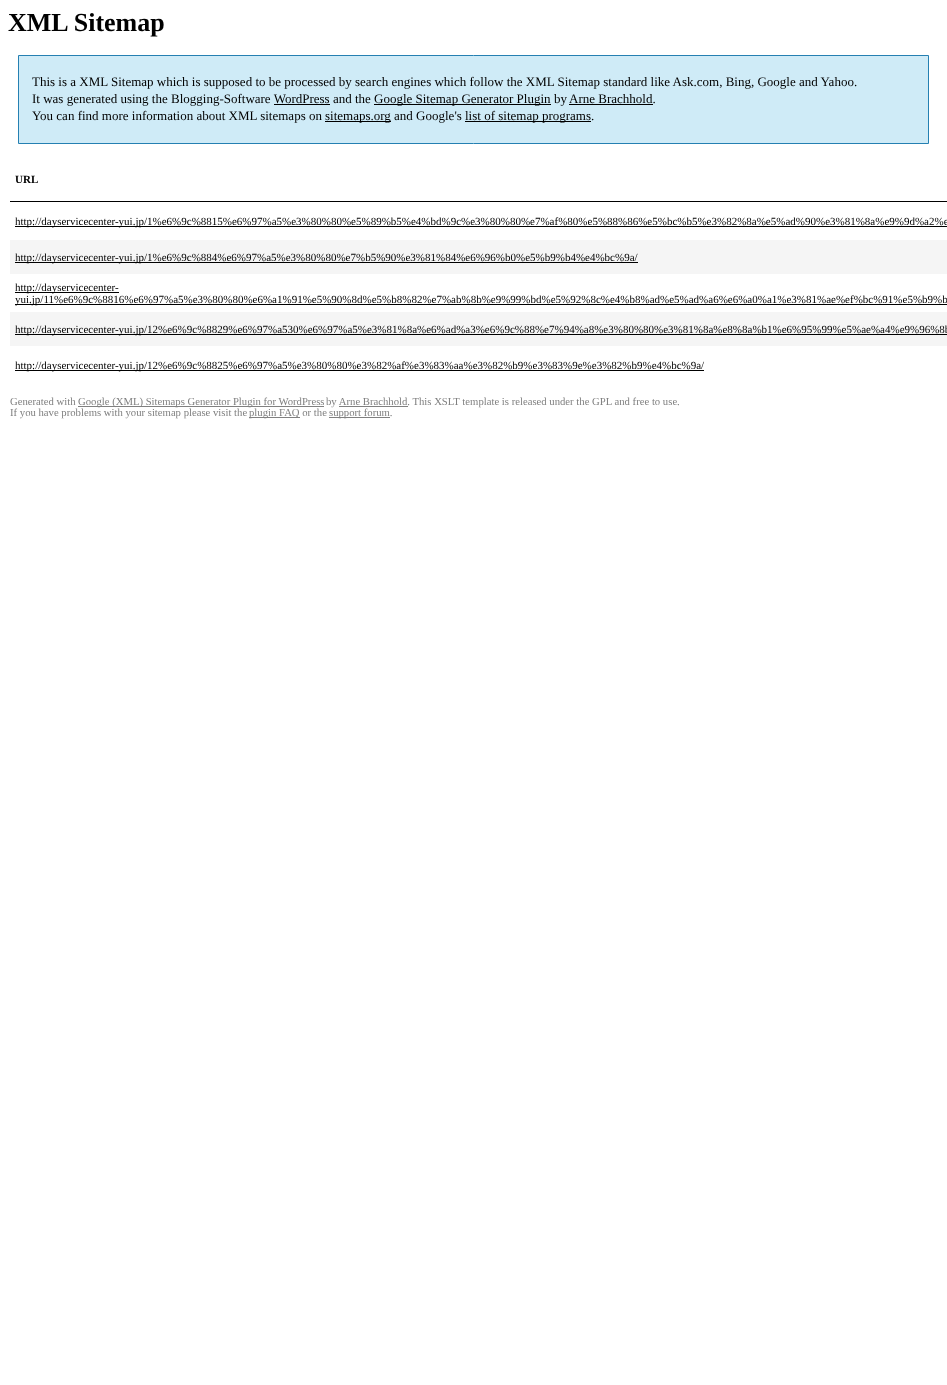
<!DOCTYPE html>
<meta charset="utf-8">
<style>body { margin: 0 } canvas { display: block }</style>
<canvas id="canvas" width="947" height="1385"></canvas>
<script>
window.onload = function () {
    const canvas = document.getElementById('canvas');
    const context = canvas.getContext('2d');
    context.miterLimit = 4;
    context.fontKerning = 'normal';

    context.fillStyle = 'rgb(255, 255, 255)';
    context.fillRect(0, 0, 947, 1385);
    context.fillStyle = 'rgb(207, 235, 247)';
    context.beginPath();
    context.rect(18.5, 55.5, 910, 88);
    context.fill();
    context.strokeStyle = 'rgb(37, 128, 178)';
    context.stroke();
    context.fillStyle = 'rgb(0, 0, 0)';
    context.fillRect(374, 104, 177, 1);
    context.fillRect(569, 104, 84, 1);
    context.fillRect(274, 104, 56, 1);
    context.fillRect(325, 121, 66, 1);
    context.fillRect(465, 121, 126, 1);
    context.fillRect(10, 201, 937, 1);
    context.fillRect(15, 226, 932, 1);
    context.fillStyle = 'rgb(245, 245, 245)';
    context.fillRect(10, 240, 937, 34);
    context.fillStyle = 'rgb(0, 0, 0)';
    context.fillRect(15, 262, 623, 1);
    context.fillRect(15, 292, 104, 1);
    context.fillRect(15, 304, 932, 1);
    context.fillStyle = 'rgb(245, 245, 245)';
    context.fillRect(10, 312, 937, 34);
    context.fillStyle = 'rgb(0, 0, 0)';
    context.fillRect(15, 334, 932, 1);
    context.fillRect(15, 370, 689, 1);
    context.fillStyle = 'rgb(128, 128, 128)';
    context.fillRect(78, 406, 246, 1);
    context.fillRect(339, 406, 69, 1);
    context.fillRect(249, 417, 51, 1);
    context.fillRect(329, 417, 61, 1);
    context.font = 'bold 26px Liberation Serif';
    context.fillStyle = 'rgb(0, 0, 0)';
    context.fillText('XML Sitemap', 8, 31);
    context.font = '13px Liberation Serif';
    context.fillText('This is a XML Sitemap which is supposed to be processed by search engines which follow the XML Sitemap standard like Ask.com, Bing, Google and Yahoo.', 32, 86);
    context.fillText('It was generated using the Blogging-Software WordPress and the', 32, 103);
    context.fillText('Google Sitemap Generator Plugin', 374, 103);
    context.fillText('by', 554, 103);
    context.fillText('Arne Brachhold.', 569, 103);
    context.fillText('You can find more information about XML sitemaps on', 32, 120);
    context.fillText('sitemaps.org and Google\'s', 325, 120);
    context.fillText('list of sitemap programs.', 465, 120);
    context.font = 'bold 11px Liberation Serif';
    context.fillText('URL', 15, 183);
    context.font = '11px Liberation Serif';
    context.fillText('http://dayservicecenter-yui.jp/1%e6%9c%8815%e6%97%a5%e3%80%80%e5%89%b5%e4%bd%9c%e3%80%80%e7%af%80%e5%88%86%e5%bc%b5%e3%82%8a%e5%ad%90%e3%81%8a%e9%9d%a2%e', 15, 225);
    context.fillText('http://dayservicecenter-yui.jp/1%e6%9c%884%e6%97%a5%e3%80%80%e7%b5%90%e3%81%84%e6%96%b0%e5%b9%b4%e4%bc%9a/', 15, 261);
    context.fillText('http://dayservicecenter-', 15, 291);
    context.fillText('yui.jp/11%e6%9c%8816%e6%97%a5%e3%80%80%e6%a1%91%e5%90%8d%e5%b8%82%e7%ab%8b%e9%99%bd%e5%92%8c%e4%b8%ad%e5%ad%a6%e6%a0%a1%e3%81%ae%ef%bc%91%e5%b9%b', 15, 303);
    context.fillText('http://dayservicecenter-yui.jp/12%e6%9c%8829%e6%97%a530%e6%97%a5%e3%81%8a%e6%ad%a3%e6%9c%88%e7%94%a8%e3%80%80%e3%81%8a%e8%8a%b1%e6%95%99%e5%ae%a4%e9%96%8b', 15, 333);
    context.fillText('http://dayservicecenter-yui.jp/12%e6%9c%8825%e6%97%a5%e3%80%80%e3%82%af%e3%83%aa%e3%82%b9%e3%83%9e%e3%82%b9%e4%bc%9a/', 15, 369);
    context.font = '10.7px Liberation Serif';
    context.fillStyle = 'rgb(128, 128, 128)';
    context.fillText('Generated with', 10, 405);
    context.fillText('Google (XML) Sitemaps Generator Plugin for WordPress', 78, 405);
    context.fillText('by Arne Brachhold. This XSLT template is released under the GPL and free to use.', 326, 405);
    context.fillText('If you have problems with your sitemap please visit the', 10, 416);
    context.fillText('plugin FAQ or the', 249, 416);
    context.fillText('support forum.', 329, 416);
};
</script>
